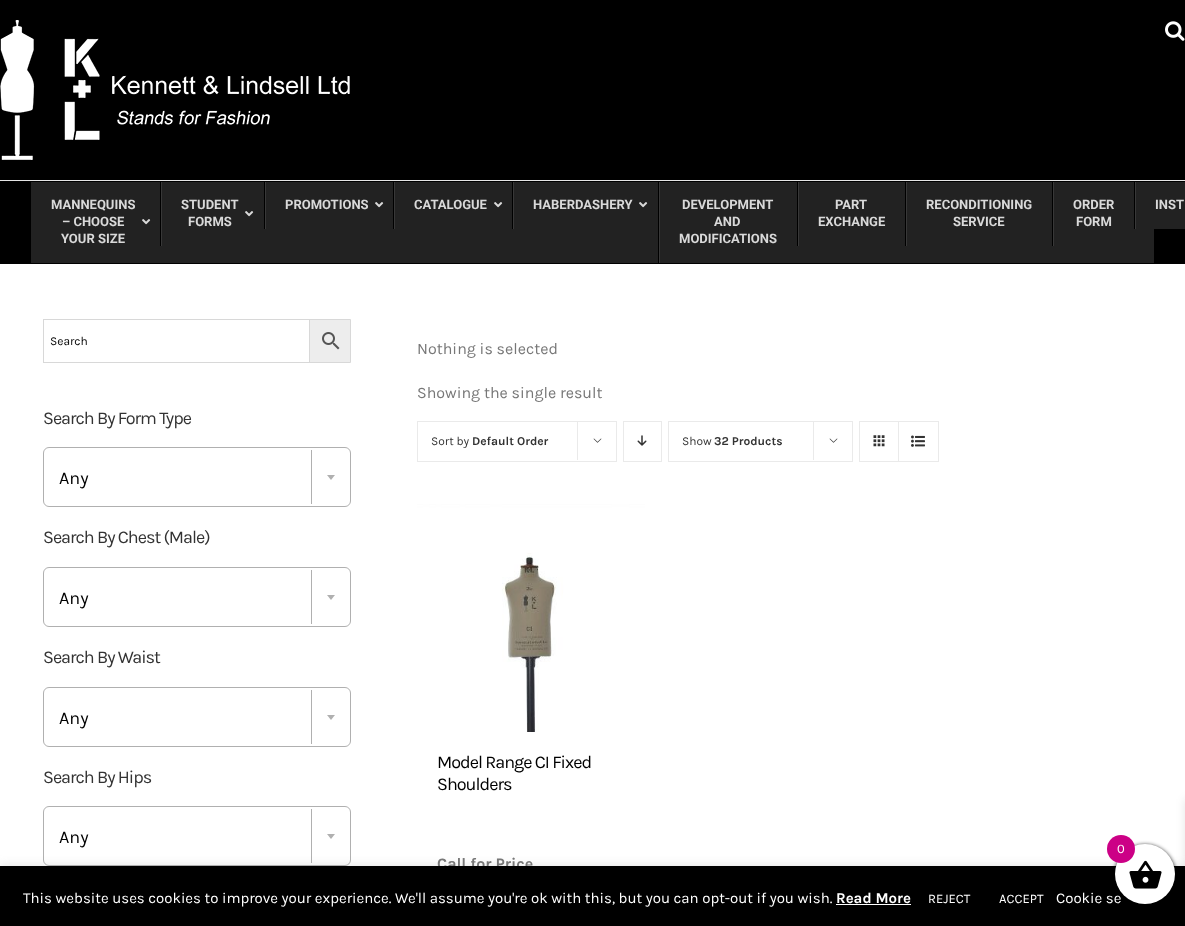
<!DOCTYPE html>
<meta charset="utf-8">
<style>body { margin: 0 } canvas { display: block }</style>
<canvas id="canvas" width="1185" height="926"></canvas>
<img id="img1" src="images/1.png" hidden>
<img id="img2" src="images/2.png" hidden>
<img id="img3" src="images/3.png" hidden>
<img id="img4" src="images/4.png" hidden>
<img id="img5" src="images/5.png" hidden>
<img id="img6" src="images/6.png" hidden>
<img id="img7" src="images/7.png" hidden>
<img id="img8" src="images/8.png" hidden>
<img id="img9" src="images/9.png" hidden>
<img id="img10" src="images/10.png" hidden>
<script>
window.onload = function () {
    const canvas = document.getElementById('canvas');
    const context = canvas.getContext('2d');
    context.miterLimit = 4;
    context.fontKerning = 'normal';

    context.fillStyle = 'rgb(255, 255, 255)';
    context.fillRect(0, 0, 1185, 926);
    context.fillStyle = 'rgb(0, 0, 0)';
    context.fillRect(0, 0, 1185, 180);
    context.fillStyle = 'rgb(229, 229, 229)';
    context.fillRect(0, 180, 1185, 1);
    context.drawImage(document.getElementById('img1'), 0, 20, 350, 140);
    context.drawImage(document.getElementById('img2'), 1165, 21, 20, 20);
    context.fillStyle = 'rgb(0, 0, 0)';
    context.fillRect(0, 181, 1185, 83);
    context.fillStyle = 'rgb(34, 34, 34)';
    context.fillRect(160, 229, 994, 34);
    context.fillRect(31, 182, 129, 81);
    context.drawImage(document.getElementById('img3'), 142, 219, 9, 6);
    context.fillRect(162, 182, 102, 47);
    context.fillStyle = 'rgb(56, 56, 56)';
    context.fillRect(161, 182, 1, 64);
    context.fillStyle = 'rgb(0, 0, 0)';
    context.fillRect(160, 229, 1, 17);
    context.drawImage(document.getElementById('img3'), 245, 211, 9, 6);
    context.fillStyle = 'rgb(34, 34, 34)';
    context.fillRect(266, 182, 127, 47);
    context.fillStyle = 'rgb(56, 56, 56)';
    context.fillRect(265, 182, 1, 47);
    context.drawImage(document.getElementById('img3'), 375, 202, 9, 6);
    context.fillStyle = 'rgb(34, 34, 34)';
    context.fillRect(395, 182, 117, 47);
    context.fillStyle = 'rgb(56, 56, 56)';
    context.fillRect(394, 182, 1, 47);
    context.drawImage(document.getElementById('img3'), 494, 202, 9, 6);
    context.fillStyle = 'rgb(34, 34, 34)';
    context.fillRect(514, 182, 144, 47);
    context.fillStyle = 'rgb(56, 56, 56)';
    context.fillRect(513, 182, 1, 47);
    context.drawImage(document.getElementById('img3'), 639, 202, 9, 6);
    context.fillStyle = 'rgb(34, 34, 34)';
    context.fillRect(660, 182, 137, 47);
    context.fillStyle = 'rgb(56, 56, 56)';
    context.fillRect(659, 182, 1, 81);
    context.fillStyle = 'rgb(0, 0, 0)';
    context.fillRect(658, 229, 1, 34);
    context.fillStyle = 'rgb(34, 34, 34)';
    context.fillRect(799, 182, 106, 47);
    context.fillStyle = 'rgb(56, 56, 56)';
    context.fillRect(798, 182, 1, 64);
    context.fillStyle = 'rgb(0, 0, 0)';
    context.fillRect(797, 229, 1, 17);
    context.fillStyle = 'rgb(34, 34, 34)';
    context.fillRect(907, 182, 145, 47);
    context.fillStyle = 'rgb(56, 56, 56)';
    context.fillRect(906, 182, 1, 64);
    context.fillStyle = 'rgb(0, 0, 0)';
    context.fillRect(905, 229, 1, 17);
    context.fillStyle = 'rgb(34, 34, 34)';
    context.fillRect(1054, 182, 80, 47);
    context.fillStyle = 'rgb(56, 56, 56)';
    context.fillRect(1053, 182, 1, 64);
    context.fillStyle = 'rgb(0, 0, 0)';
    context.fillRect(1052, 229, 1, 17);
    context.fillStyle = 'rgb(34, 34, 34)';
    context.fillRect(1136, 182, 49, 47);
    context.fillStyle = 'rgb(56, 56, 56)';
    context.fillRect(1135, 182, 1, 47);
    context.fillStyle = 'rgb(237, 237, 237)';
    context.beginPath();
    context.rect(309.5, 319.5, 41, 43);
    context.fill();
    context.strokeStyle = 'rgb(216, 216, 216)';
    context.stroke();
    context.strokeRect(43.5, 319.5, 266, 43);
    context.drawImage(document.getElementById('img4'), 322, 332, 18, 18);
    context.beginPath();
    context.roundRect(43.5, 447.5, 307, 59, 5.5);
    context.strokeStyle = 'rgb(176, 176, 176)';
    context.stroke();
    context.fillStyle = 'rgb(176, 176, 176)';
    context.fillRect(311, 450, 1, 54);
    context.beginPath();
    context.moveTo(327, 475);
    context.lineTo(335, 475);
    context.lineTo(331, 480);
    context.closePath();
    context.fill();
    context.beginPath();
    context.roundRect(43.5, 567.5, 307, 59, 5.5);
    context.stroke();
    context.fillRect(311, 570, 1, 54);
    context.beginPath();
    context.moveTo(327, 595);
    context.lineTo(335, 595);
    context.lineTo(331, 600);
    context.closePath();
    context.fill();
    context.beginPath();
    context.roundRect(43.5, 687.5, 307, 59, 5.5);
    context.stroke();
    context.fillRect(311, 690, 1, 54);
    context.beginPath();
    context.moveTo(327, 715);
    context.lineTo(335, 715);
    context.lineTo(331, 720);
    context.closePath();
    context.fill();
    context.beginPath();
    context.roundRect(43.5, 806.5, 307, 59, 5.5);
    context.stroke();
    context.fillRect(311, 809, 1, 54);
    context.beginPath();
    context.moveTo(327, 834);
    context.lineTo(335, 834);
    context.lineTo(331, 839);
    context.closePath();
    context.fill();
    context.strokeStyle = 'rgb(234, 234, 234)';
    context.strokeRect(417.5, 421.5, 199, 40);
    context.fillStyle = 'rgb(234, 234, 234)';
    context.fillRect(577, 421, 1, 39);
    context.drawImage(document.getElementById('img5'), 593, 438, 9, 5);
    context.strokeRect(623.5, 421.5, 38, 40);
    context.drawImage(document.getElementById('img6'), 637, 435, 10, 11);
    context.strokeRect(668.5, 421.5, 184, 40);
    context.fillRect(813, 421, 1, 39);
    context.drawImage(document.getElementById('img5'), 829, 438, 9, 5);
    context.strokeRect(859.5, 421.5, 79, 40);
    context.fillRect(898, 422, 1, 39);
    context.drawImage(document.getElementById('img7'), 873, 435, 12, 12);
    context.drawImage(document.getElementById('img8'), 911, 435, 14, 12);
    context.drawImage(document.getElementById('img9'), 417, 504, 228, 228);
    context.fillStyle = 'rgba(172, 171, 171, 0.3)';
    context.filter = 'blur(5px)';
    context.beginPath();
    context.rect(0, 865, 1185, 60);
    context.fill();
    context.filter = 'none';
    context.font = 'bold 13px Roboto';
    context.fillStyle = 'rgb(217, 217, 217)';
    context.fillText('MANNEQUINS', 51, 209);
    context.fillText('– CHOOSE', 62, 226);
    context.fillText('YOUR SIZE', 61, 243);
    context.fillText('STUDENT', 181, 209);
    context.fillText('FORMS', 188, 226);
    context.fillText('PROMOTIONS', 285, 209);
    context.fillText('CATALOGUE', 414, 209);
    context.fillText('HABERDASHERY', 533, 209);
    context.fillText('DEVELOPMENT', 682, 209);
    context.fillText('AND', 714, 226);
    context.fillText('MODIFICATIONS', 679, 243);
    context.fillText('PART', 835, 209);
    context.fillText('EXCHANGE', 818, 226);
    context.fillText('RECONDITIONING', 926, 209);
    context.fillText('SERVICE', 953, 226);
    context.fillText('ORDER', 1073, 209);
    context.fillText('FORM', 1076, 226);
    context.fillText('INST', 1155, 209);
    context.font = '12px Karla';
    context.fillStyle = 'rgb(0, 0, 0)';
    context.fillText('Search', 50, 345);
    context.letterSpacing = '-1px';
    context.font = '18px Karla';
    context.fillStyle = 'rgb(51, 51, 51)';
    context.fillText('Search By Form Type', 43, 424);
    context.letterSpacing = '0px';
    context.fillStyle = 'rgb(0, 0, 0)';
    context.fillText('Any', 59, 484);
    context.letterSpacing = '-1px';
    context.fillStyle = 'rgb(51, 51, 51)';
    context.fillText('Search By Chest (Male)', 43, 543);
    context.letterSpacing = '0px';
    context.fillStyle = 'rgb(0, 0, 0)';
    context.fillText('Any', 59, 604);
    context.letterSpacing = '-1px';
    context.fillStyle = 'rgb(51, 51, 51)';
    context.fillText('Search By Waist', 43, 663);
    context.letterSpacing = '0px';
    context.fillStyle = 'rgb(0, 0, 0)';
    context.fillText('Any', 59, 724);
    context.letterSpacing = '-1px';
    context.fillStyle = 'rgb(51, 51, 51)';
    context.fillText('Search By Hips', 43, 783);
    context.letterSpacing = '0px';
    context.fillStyle = 'rgb(0, 0, 0)';
    context.fillText('Any', 59, 843);
    context.font = '16px Karla';
    context.fillStyle = 'rgb(119, 119, 119)';
    context.fillText('Nothing is selected', 417, 354);
    context.fillText('Showing the single result', 417, 398);
    context.font = '12px Karla';
    context.fillStyle = 'rgb(51, 51, 51)';
    context.fillText('Sort by', 431, 445);
    context.font = 'bold 12px Karla';
    context.fillText('Default Order', 472, 445);
    context.font = '12px Karla';
    context.fillText('Show', 682, 445);
    context.font = 'bold 12px Karla';
    context.fillText('32 Products', 714, 445);
    context.letterSpacing = '-1px';
    context.font = '18px Karla';
    context.fillStyle = 'rgb(0, 0, 0)';
    context.fillText('Model Range CI Fixed', 437, 768);
    context.fillText('Shoulders', 437, 790);
    context.letterSpacing = '0px';
    context.font = 'bold 16px Karla';
    context.fillStyle = 'rgb(119, 119, 119)';
    context.fillText('Call for Price', 437, 869);
    context.fillStyle = 'rgb(0, 0, 0)';
    context.fillRect(0, 866, 1185, 60);
    context.filter = 'blur(2px)';
    context.beginPath();
    context.roundRect(1115, 845, 60, 60, 30);
    context.fill();
    context.filter = 'none';
    context.fillStyle = 'rgba(0, 0, 0, 0.1)';
    context.filter = 'blur(5px)';
    context.beginPath();
    context.rect(1185, 799, 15, 122);
    context.fill();
    context.filter = 'none';
    context.fillStyle = 'rgb(255, 255, 255)';
    context.beginPath();
    context.arc(1145, 874, 30, 0, 2 * Math.PI);
    context.fill();
    context.drawImage(document.getElementById('img10'), 1129, 860, 33, 29);
    context.fillStyle = 'rgb(204, 0, 134)';
    context.beginPath();
    context.arc(1121, 849, 14, 0, 2 * Math.PI);
    context.fill();
    context.font = '13px Karla';
    context.fillStyle = 'rgb(255, 255, 255)';
    context.fillText('0', 1117, 853);
    context.font = '15px Karla';
    context.fillText('This website uses cookies to improve your experience. We\'ll assume you\'re ok with this, but you can opt-out if you wish.', 23, 903);
    context.font = 'bold 15px Karla';
    context.fillText('Read More', 836, 903);
    context.fillRect(836, 904, 75, 1);
    context.font = '13px Karla';
    context.fillText('REJECT', 928, 903);
    context.fillText('ACCEPT', 999, 903);
    context.font = '15px Karla';
    context.fillText('Cookie se', 1056, 903);
};
</script>
